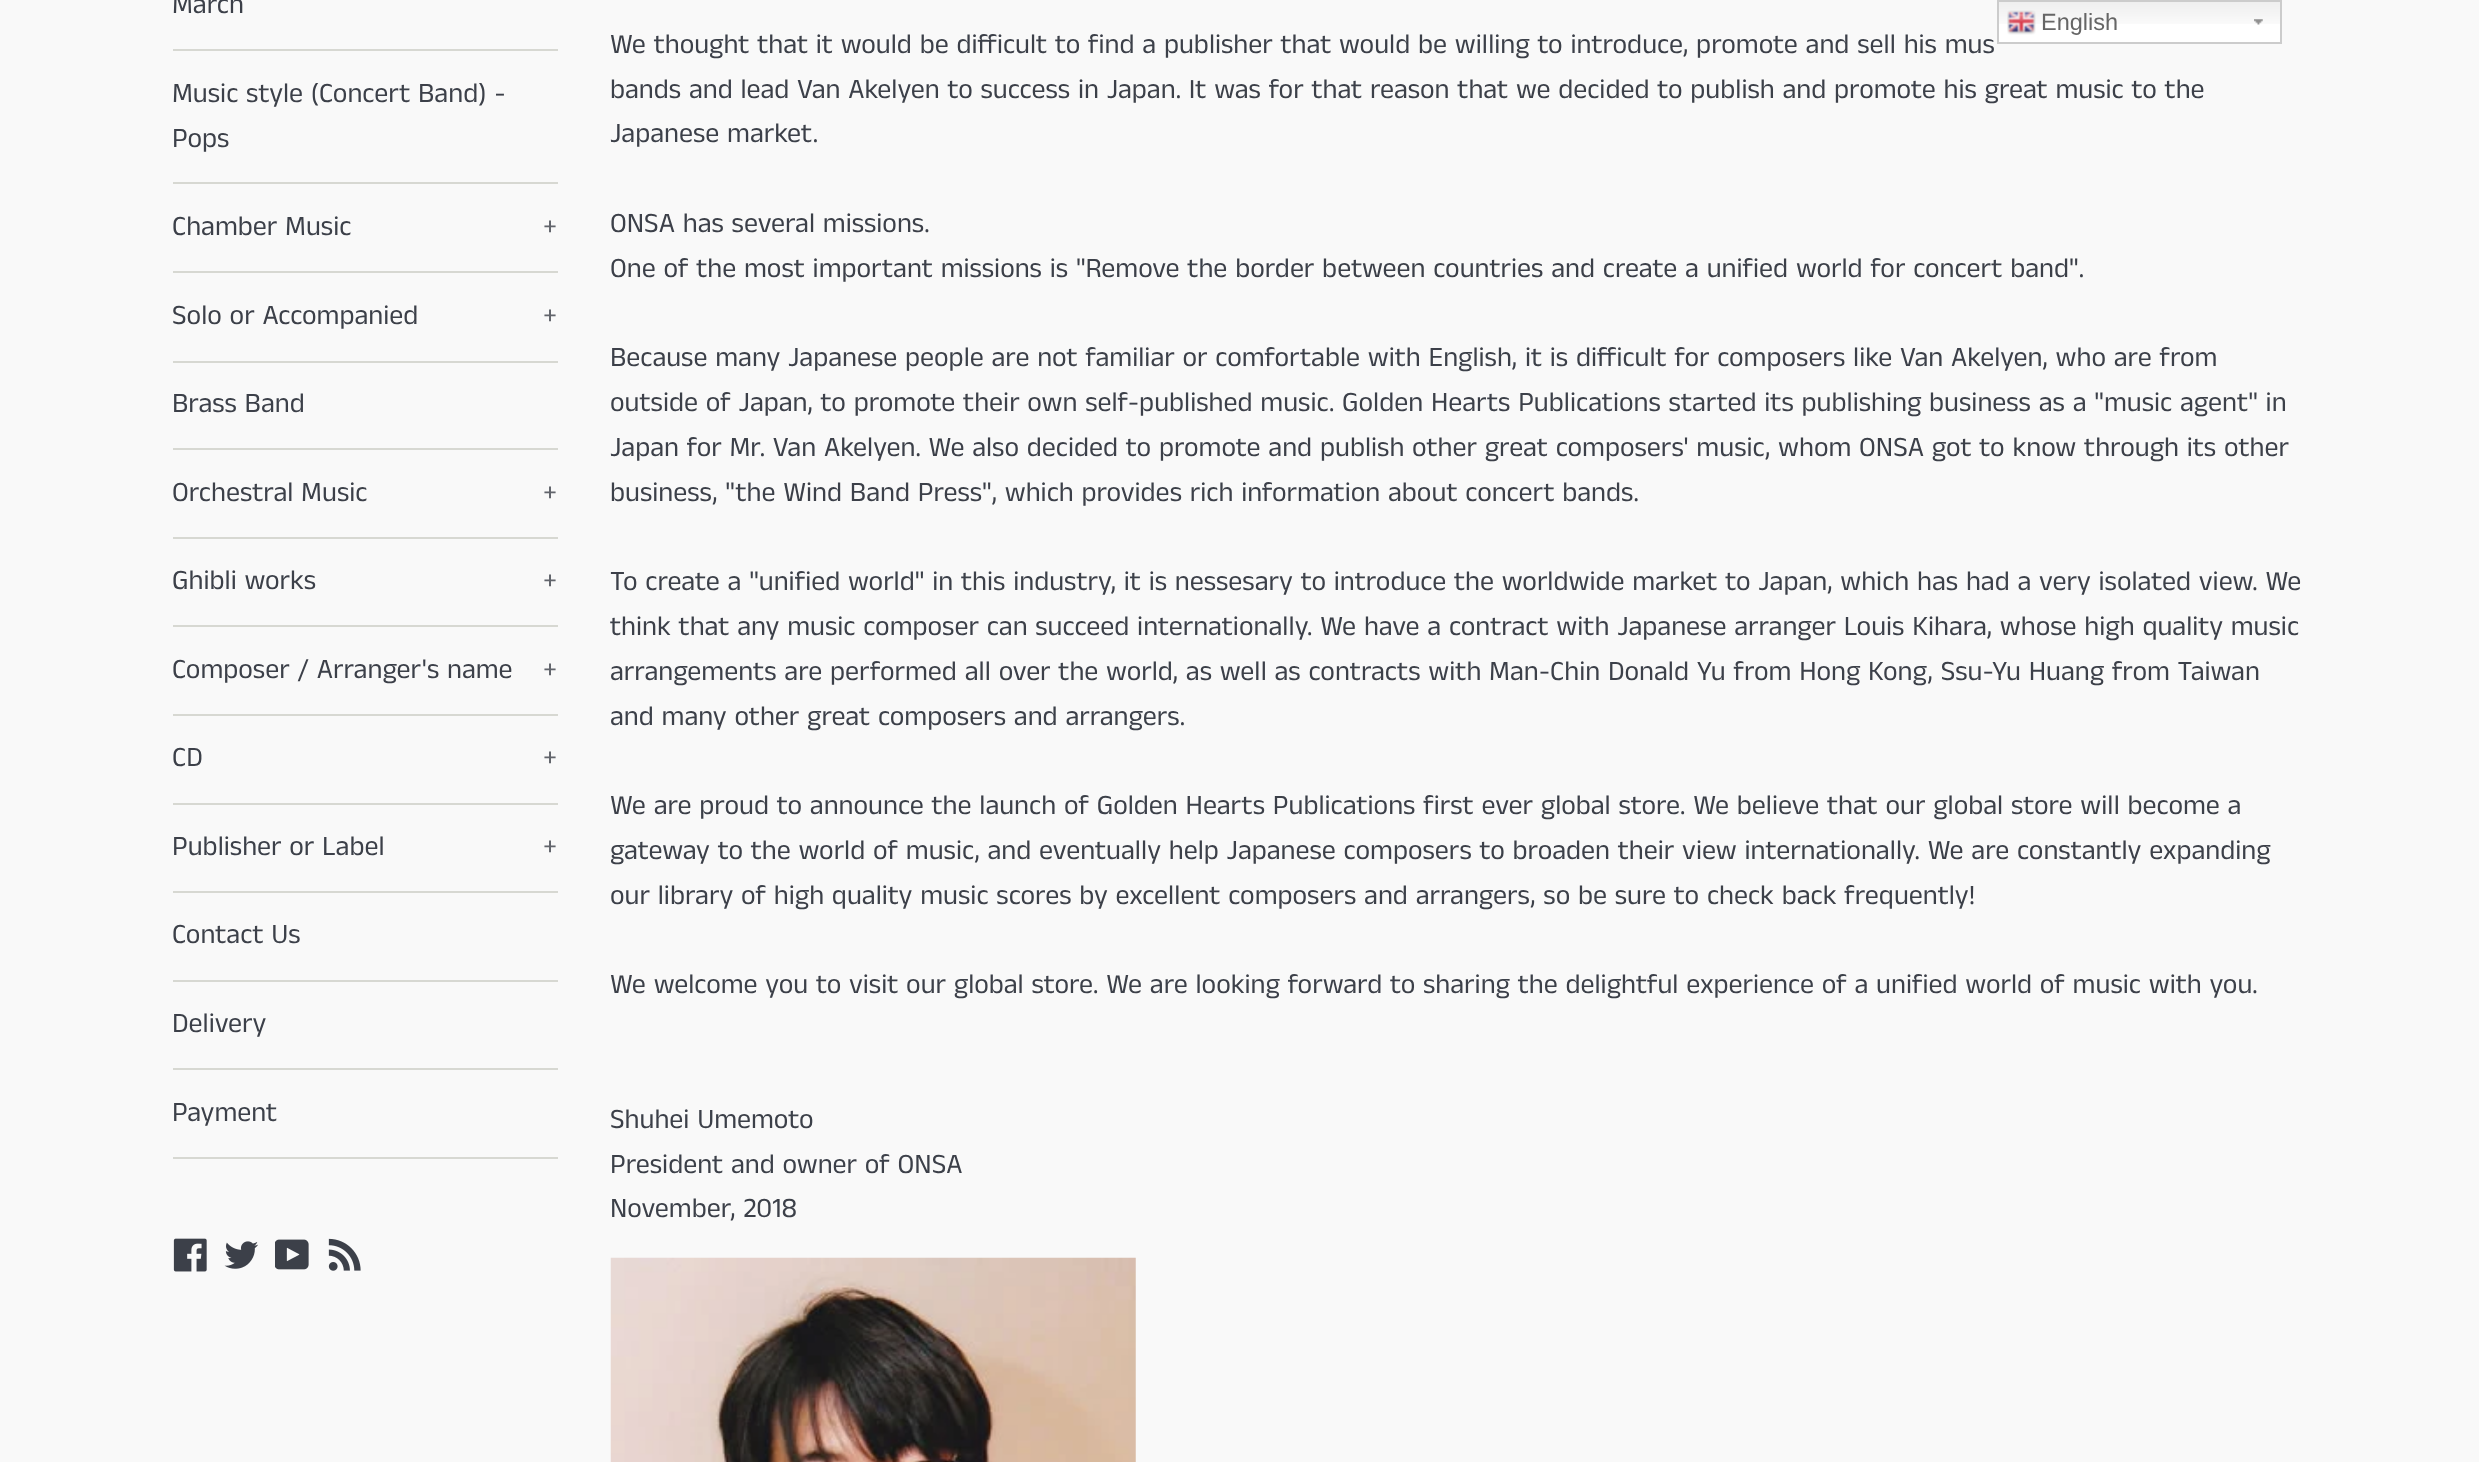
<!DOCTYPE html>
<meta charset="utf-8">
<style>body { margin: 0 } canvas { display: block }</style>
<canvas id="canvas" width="2479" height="1462"></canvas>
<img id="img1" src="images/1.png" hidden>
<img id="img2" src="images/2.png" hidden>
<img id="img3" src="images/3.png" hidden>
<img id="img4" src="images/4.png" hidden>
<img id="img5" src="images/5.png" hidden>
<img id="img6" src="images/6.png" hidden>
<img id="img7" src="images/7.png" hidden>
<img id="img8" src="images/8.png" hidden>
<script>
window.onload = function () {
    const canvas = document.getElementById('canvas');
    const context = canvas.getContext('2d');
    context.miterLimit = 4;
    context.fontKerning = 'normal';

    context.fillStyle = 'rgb(249, 249, 249)';
    context.fillRect(0, 0, 2479, 1462);
    context.fillStyle = 'rgb(215, 216, 210)';
    context.fillRect(173, 49, 385, 2);
    context.fillRect(173, 182, 385, 2);
    context.fillRect(173, 271, 385, 2);
    context.fillRect(173, 361, 385, 2);
    context.fillRect(173, 448, 385, 2);
    context.fillRect(173, 537, 385, 2);
    context.fillRect(173, 625, 385, 2);
    context.fillRect(173, 714, 385, 2);
    context.fillRect(173, 803, 385, 2);
    context.fillRect(173, 891, 385, 2);
    context.fillRect(173, 980, 385, 2);
    context.fillRect(173, 1068, 385, 2);
    context.fillRect(173, 1157, 385, 2);
    context.drawImage(document.getElementById('img1'), 173, 1238, 34, 34);
    context.drawImage(document.getElementById('img2'), 224, 1241, 34, 28);
    context.drawImage(document.getElementById('img3'), 275, 1239, 34, 31);
    context.drawImage(document.getElementById('img4'), 328, 1238, 33, 33);
    context.drawImage(document.getElementById('img5'), 610, 1257, 526, 205);
    context.fillStyle = 'rgb(255, 255, 255)';
    context.fillRect(1999, 24, 281, 18);
    context.drawImage(document.getElementById('img6'), 1999, 2, 281, 22);
    context.drawImage(document.getElementById('img7'), 2254, 19, 9, 6);
    context.strokeStyle = 'rgb(204, 204, 204)';
    context.lineWidth = 2;
    context.strokeRect(1998, 1, 283, 42);
    context.drawImage(document.getElementById('img8'), 2007, 10, 29, 25);
    context.font = '28px Anek Tamil';
    context.fillStyle = 'rgb(60, 64, 73)';
    context.fillText('March', 172, 13);
    context.fillText('Music style (Concert Band) -', 172, 102);
    context.fillText('Pops', 172, 147);
    context.fillText('Chamber Music', 172, 235);
    context.fillStyle = 'rgb(98, 101, 108)';
    context.fillText('+', 543, 235);
    context.fillStyle = 'rgb(60, 64, 73)';
    context.fillText('Solo or Accompanied', 172, 324);
    context.fillStyle = 'rgb(98, 101, 108)';
    context.fillText('+', 543, 324);
    context.fillStyle = 'rgb(60, 64, 73)';
    context.fillText('Brass Band', 172, 412);
    context.fillText('Orchestral Music', 172, 501);
    context.fillStyle = 'rgb(98, 101, 108)';
    context.fillText('+', 543, 501);
    context.fillStyle = 'rgb(60, 64, 73)';
    context.fillText('Ghibli works', 172, 589);
    context.fillStyle = 'rgb(98, 101, 108)';
    context.fillText('+', 543, 589);
    context.fillStyle = 'rgb(60, 64, 73)';
    context.fillText('Composer / Arranger\'s name', 172, 678);
    context.fillStyle = 'rgb(98, 101, 108)';
    context.fillText('+', 543, 678);
    context.fillStyle = 'rgb(60, 64, 73)';
    context.fillText('CD', 172, 766);
    context.fillStyle = 'rgb(98, 101, 108)';
    context.fillText('+', 543, 766);
    context.fillStyle = 'rgb(60, 64, 73)';
    context.fillText('Publisher or Label', 172, 855);
    context.fillStyle = 'rgb(98, 101, 108)';
    context.fillText('+', 543, 855);
    context.fillStyle = 'rgb(60, 64, 73)';
    context.fillText('Contact Us', 172, 943);
    context.fillText('Delivery', 172, 1032);
    context.fillText('Payment', 172, 1121);
    context.fillText('We thought that it would be difficult to find a publisher that would be willing to introduce, promote and sell his mus', 610, 53);
    context.fillText('bands and lead Van Akelyen to success in Japan. It was for that reason that we decided to publish and promote his great music to the', 610, 98);
    context.fillText('Japanese market.', 610, 142);
    context.fillText('ONSA has several missions.', 610, 232);
    context.fillText('One of the most important missions is "Remove the border between countries and create a unified world for concert band".', 610, 277);
    context.fillText('Because many Japanese people are not familiar or comfortable with English, it is difficult for composers like Van Akelyen, who are from', 610, 366);
    context.fillText('outside of Japan, to promote their own self-published music. Golden Hearts Publications started its publishing business as a "music agent" in', 610, 411);
    context.fillText('Japan for Mr. Van Akelyen. We also decided to promote and publish other great composers\' music, whom ONSA got to know through its other', 610, 456);
    context.fillText('business, "the Wind Band Press", which provides rich information about concert bands.', 610, 501);
    context.fillText('To create a "unified world" in this industry, it is nessesary to introduce the worldwide market to Japan, which has had a very isolated view. We', 610, 590);
    context.fillText('think that any music composer can succeed internationally. We have a contract with Japanese arranger Louis Kihara, whose high quality music', 610, 635);
    context.fillText('arrangements are performed all over the world, as well as contracts with Man-Chin Donald Yu from Hong Kong, Ssu-Yu Huang from Taiwan', 610, 680);
    context.fillText('and many other great composers and arrangers.', 610, 725);
    context.fillText('We are proud to announce the launch of Golden Hearts Publications first ever global store. We believe that our global store will become a', 610, 814);
    context.fillText('gateway to the world of music, and eventually help Japanese composers to broaden their view internationally. We are constantly expanding', 610, 859);
    context.fillText('our library of high quality music scores by excellent composers and arrangers, so be sure to check back frequently!', 610, 904);
    context.fillText('We welcome you to visit our global store. We are looking forward to sharing the delightful experience of a unified world of music with you.', 610, 993);
    context.fillText('Shuhei Umemoto', 610, 1128);
    context.fillText('President and owner of ONSA', 610, 1173);
    context.fillText('November, 2018', 610, 1217);
    context.font = '23.5px Liberation Sans';
    context.fillStyle = 'rgb(102, 102, 102)';
    context.fillText('English', 2041, 30);
};
</script>
